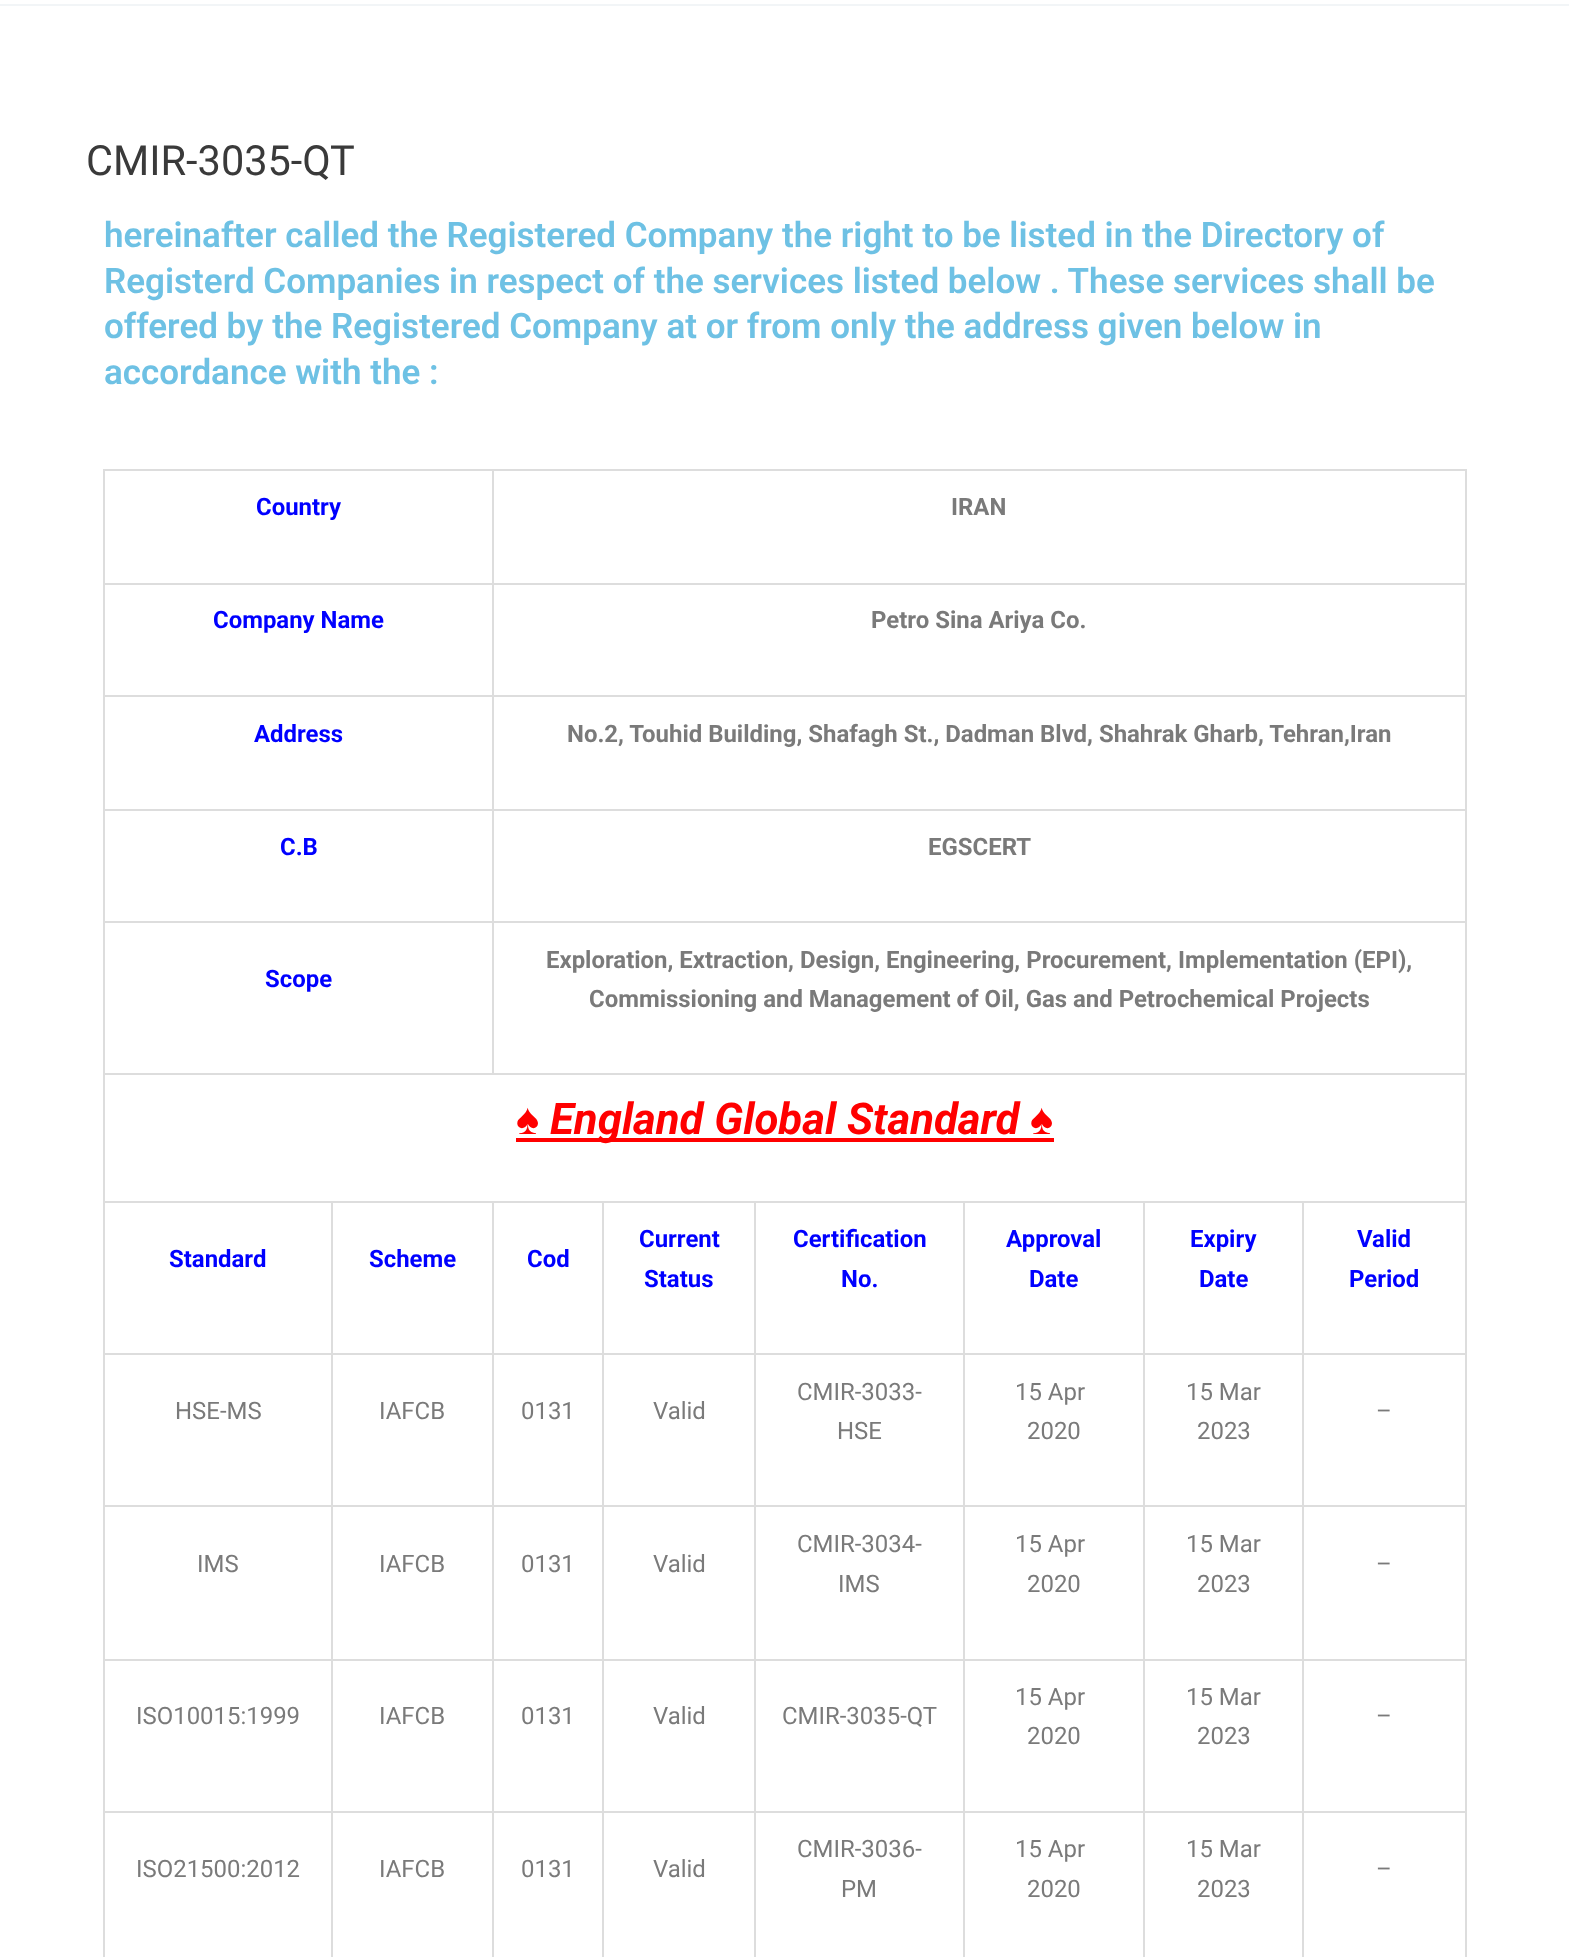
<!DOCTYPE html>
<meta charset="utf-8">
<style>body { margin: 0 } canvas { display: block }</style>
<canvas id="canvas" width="1569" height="1957"></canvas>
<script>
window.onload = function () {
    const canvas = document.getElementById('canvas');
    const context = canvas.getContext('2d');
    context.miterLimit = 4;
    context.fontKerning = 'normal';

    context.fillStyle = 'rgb(255, 255, 255)';
    context.fillRect(0, 0, 1569, 1957);
    context.fillStyle = 'rgb(242, 245, 247)';
    context.fillRect(0, 4, 1569, 2);
    context.fillStyle = 'rgb(221, 221, 221)';
    context.fillRect(103, 469, 1364, 2);
    context.fillRect(103, 469, 2, 1488);
    context.fillRect(492, 471, 2, 339);
    context.fillRect(105, 583, 389, 2);
    context.fillRect(1465, 471, 2, 339);
    context.fillRect(494, 583, 973, 2);
    context.fillRect(105, 695, 1362, 2);
    context.fillRect(105, 809, 1362, 2);
    context.fillRect(492, 810, 2, 112);
    context.fillRect(105, 921, 389, 2);
    context.fillRect(1465, 810, 2, 112);
    context.fillRect(494, 921, 973, 2);
    context.fillRect(492, 922, 2, 153);
    context.fillRect(105, 1073, 389, 2);
    context.fillRect(1465, 922, 2, 280);
    context.fillRect(494, 1073, 973, 2);
    context.fillRect(105, 1201, 1362, 2);
    context.fillStyle = 'rgb(255, 0, 0)';
    context.fillRect(516, 1138, 538, 4);
    context.fillStyle = 'rgb(221, 221, 221)';
    context.fillRect(331, 1202, 2, 755);
    context.fillRect(105, 1353, 228, 2);
    context.fillRect(492, 1202, 2, 755);
    context.fillRect(333, 1353, 161, 2);
    context.fillRect(602, 1202, 2, 755);
    context.fillRect(494, 1353, 110, 2);
    context.fillRect(754, 1202, 2, 755);
    context.fillRect(604, 1353, 152, 2);
    context.fillRect(963, 1202, 2, 755);
    context.fillRect(756, 1353, 208, 2);
    context.fillRect(1143, 1202, 2, 755);
    context.fillRect(964, 1353, 181, 2);
    context.fillRect(1302, 1202, 2, 755);
    context.fillRect(1145, 1353, 159, 2);
    context.fillRect(1465, 1202, 2, 755);
    context.fillRect(1304, 1353, 163, 2);
    context.fillRect(105, 1505, 1362, 2);
    context.fillRect(105, 1659, 1362, 2);
    context.fillRect(105, 1811, 1362, 2);
    context.font = '41.5px Roboto';
    context.fillStyle = 'rgb(58, 58, 58)';
    context.fillText('CMIR-3035-QT', 86, 175);
    context.font = '600 35px Roboto';
    context.fillStyle = 'rgb(110, 193, 228)';
    context.fillText('hereinafter called the Registered Company the right to be listed in the Directory of', 104, 247);
    context.fillText('Registerd Companies in respect of the services listed below . These services shall be', 104, 293);
    context.fillText('offered by the Registered Company at or from only the address given below in', 104, 338);
    context.fillText('accordance with the :', 104, 384);
    context.font = 'bold 23.95px Roboto';
    context.fillStyle = 'rgb(0, 0, 255)';
    context.fillText('Country', 256, 515);
    context.fillStyle = 'rgb(122, 122, 122)';
    context.fillText('IRAN', 951, 515);
    context.fillStyle = 'rgb(0, 0, 255)';
    context.fillText('Company Name', 213, 628);
    context.fillStyle = 'rgb(122, 122, 122)';
    context.fillText('Petro Sina Ariya Co.', 871, 628);
    context.fillStyle = 'rgb(0, 0, 255)';
    context.fillText('Address', 254, 742);
    context.fillStyle = 'rgb(122, 122, 122)';
    context.fillText('No.2, Touhid Building, Shafagh St., Dadman Blvd, Shahrak Gharb, Tehran,Iran', 567, 742);
    context.fillStyle = 'rgb(0, 0, 255)';
    context.fillText('C.B', 280, 855);
    context.fillStyle = 'rgb(122, 122, 122)';
    context.fillText('EGSCERT', 928, 855);
    context.fillStyle = 'rgb(0, 0, 255)';
    context.fillText('Scope', 265, 987);
    context.fillStyle = 'rgb(122, 122, 122)';
    context.fillText('Exploration, Extraction, Design, Engineering, Procurement, Implementation (EPI),', 546, 968);
    context.fillText('Commissioning and Management of Oil, Gas and Petrochemical Projects', 589, 1007);
    context.font = 'italic bold 43.75px Liberation Sans';
    context.fillStyle = 'rgb(255, 0, 0)';
    context.fillText('♠', 516, 1134);
    context.font = 'italic bold 43.75px Roboto';
    context.fillText('England Global Standard', 550, 1134);
    context.font = 'italic bold 43.75px Liberation Sans';
    context.fillText('♠', 1030, 1134);
    context.font = 'bold 23.95px Roboto';
    context.fillStyle = 'rgb(0, 0, 255)';
    context.fillText('Standard', 169, 1267);
    context.fillText('Scheme', 369, 1267);
    context.fillText('Cod', 527, 1267);
    context.fillText('Current', 639, 1247);
    context.fillText('Status', 644, 1287);
    context.fillText('Certification', 793, 1247);
    context.fillText('No.', 841, 1287);
    context.fillText('Approval', 1006, 1247);
    context.fillText('Date', 1029, 1287);
    context.fillText('Expiry', 1190, 1247);
    context.fillText('Date', 1199, 1287);
    context.fillText('Valid', 1357, 1247);
    context.fillText('Period', 1349, 1287);
    context.font = '23.95px Roboto';
    context.fillStyle = 'rgb(122, 122, 122)';
    context.fillText('HSE-MS', 175, 1419);
    context.fillText('IAFCB', 379, 1419);
    context.fillText('0131', 521, 1419);
    context.fillText('Valid', 653, 1419);
    context.fillText('CMIR-3033-', 797, 1400);
    context.fillText('HSE', 837, 1439);
    context.fillText('15 Apr', 1015, 1400);
    context.fillText('2020', 1027, 1439);
    context.fillText('15 Mar', 1186, 1400);
    context.fillText('2023', 1197, 1439);
    context.fillText('–', 1376, 1419);
    context.fillText('IMS', 197, 1572);
    context.fillText('IAFCB', 379, 1572);
    context.fillText('0131', 521, 1572);
    context.fillText('Valid', 653, 1572);
    context.fillText('CMIR-3034-', 797, 1552);
    context.fillText('IMS', 838, 1592);
    context.fillText('15 Apr', 1015, 1552);
    context.fillText('2020', 1027, 1592);
    context.fillText('15 Mar', 1186, 1552);
    context.fillText('2023', 1197, 1592);
    context.fillText('–', 1376, 1572);
    context.fillText('ISO10015:1999', 136, 1724);
    context.fillText('IAFCB', 379, 1724);
    context.fillText('0131', 521, 1724);
    context.fillText('Valid', 653, 1724);
    context.fillText('CMIR-3035-QT', 782, 1724);
    context.fillText('15 Apr', 1015, 1705);
    context.fillText('2020', 1027, 1744);
    context.fillText('15 Mar', 1186, 1705);
    context.fillText('2023', 1197, 1744);
    context.fillText('–', 1376, 1724);
    context.fillText('ISO21500:2012', 136, 1877);
    context.fillText('IAFCB', 379, 1877);
    context.fillText('0131', 521, 1877);
    context.fillText('Valid', 653, 1877);
    context.fillText('CMIR-3036-', 797, 1857);
    context.fillText('PM', 841, 1897);
    context.fillText('15 Apr', 1015, 1857);
    context.fillText('2020', 1027, 1897);
    context.fillText('15 Mar', 1186, 1857);
    context.fillText('2023', 1197, 1897);
    context.fillText('–', 1376, 1877);
};
</script>
